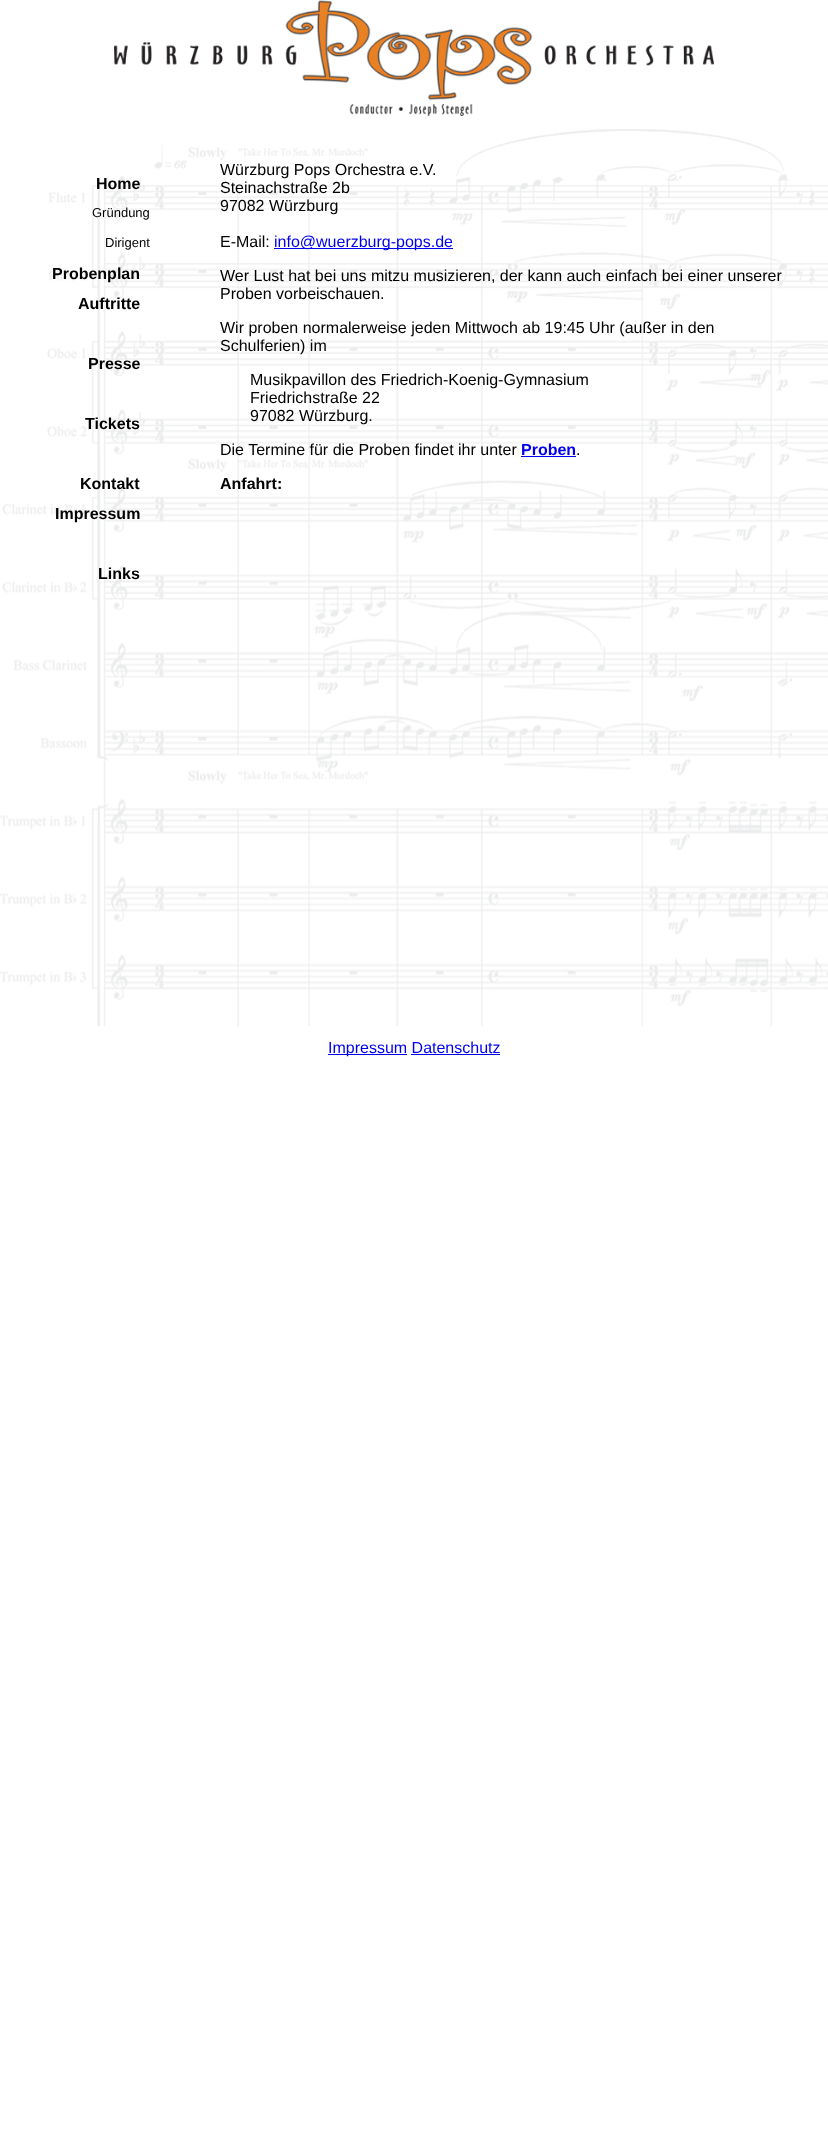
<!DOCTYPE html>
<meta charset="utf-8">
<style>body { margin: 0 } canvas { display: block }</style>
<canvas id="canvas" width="828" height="2151"></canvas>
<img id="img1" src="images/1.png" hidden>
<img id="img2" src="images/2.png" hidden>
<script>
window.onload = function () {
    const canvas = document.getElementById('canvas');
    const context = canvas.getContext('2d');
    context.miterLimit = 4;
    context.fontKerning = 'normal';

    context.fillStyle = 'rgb(255, 255, 255)';
    context.fillRect(0, 0, 828, 2151);
    context.drawImage(document.getElementById('img1'), 114, 0, 600, 116);
    context.drawImage(document.getElementById('img2'), 0, 129, 828, 897);
    context.fillStyle = 'rgb(0, 0, 238)';
    context.fillRect(274, 248, 179, 1);
    context.fillRect(521, 456, 55, 1);
    context.fillRect(328, 1054, 79, 1);
    context.fillRect(411, 1054, 89, 1);
    context.font = 'bold 16px Liberation Sans';
    context.fillStyle = 'rgb(0, 0, 0)';
    context.fillText('Home', 96, 189);
    context.font = '13px Liberation Sans';
    context.fillText('Gründung', 92, 217);
    context.fillText('Dirigent', 105, 247);
    context.font = 'bold 16px Liberation Sans';
    context.fillText('Probenplan', 52, 279);
    context.fillText('Auftritte', 78, 309);
    context.fillText('Presse', 88, 369);
    context.fillText('Tickets', 85, 429);
    context.fillText('Kontakt', 80, 489);
    context.fillText('Impressum', 55, 519);
    context.fillText('Links', 98, 579);
    context.font = '16px Liberation Sans';
    context.fillText('Würzburg Pops Orchestra e.V.', 220, 175);
    context.fillText('Steinachstraße 2b', 220, 193);
    context.fillText('97082 Würzburg', 220, 211);
    context.fillText('E-Mail:', 220, 247);
    context.fillStyle = 'rgb(0, 0, 238)';
    context.fillText('info@wuerzburg-pops.de', 274, 247);
    context.fillStyle = 'rgb(0, 0, 0)';
    context.fillText('Wer Lust hat bei uns mitzu musizieren, der kann auch einfach bei einer unserer', 220, 281);
    context.fillText('Proben vorbeischauen.', 220, 299);
    context.fillText('Wir proben normalerweise jeden Mittwoch ab 19:45 Uhr (außer in den', 220, 333);
    context.fillText('Schulferien) im', 220, 351);
    context.fillText('Musikpavillon des Friedrich-Koenig-Gymnasium', 250, 385);
    context.fillText('Friedrichstraße 22', 250, 403);
    context.fillText('97082 Würzburg.', 250, 421);
    context.fillText('Die Termine für die Proben findet ihr unter', 220, 455);
    context.font = 'bold 16px Liberation Sans';
    context.fillStyle = 'rgb(0, 0, 238)';
    context.fillText('Proben', 521, 455);
    context.font = '16px Liberation Sans';
    context.fillStyle = 'rgb(0, 0, 0)';
    context.fillText('.', 576, 455);
    context.font = 'bold 16px Liberation Sans';
    context.fillText('Anfahrt:', 220, 489);
    context.font = '16px Liberation Sans';
    context.fillStyle = 'rgb(0, 0, 238)';
    context.fillText('Impressum Datenschutz', 328, 1053);
};
</script>
